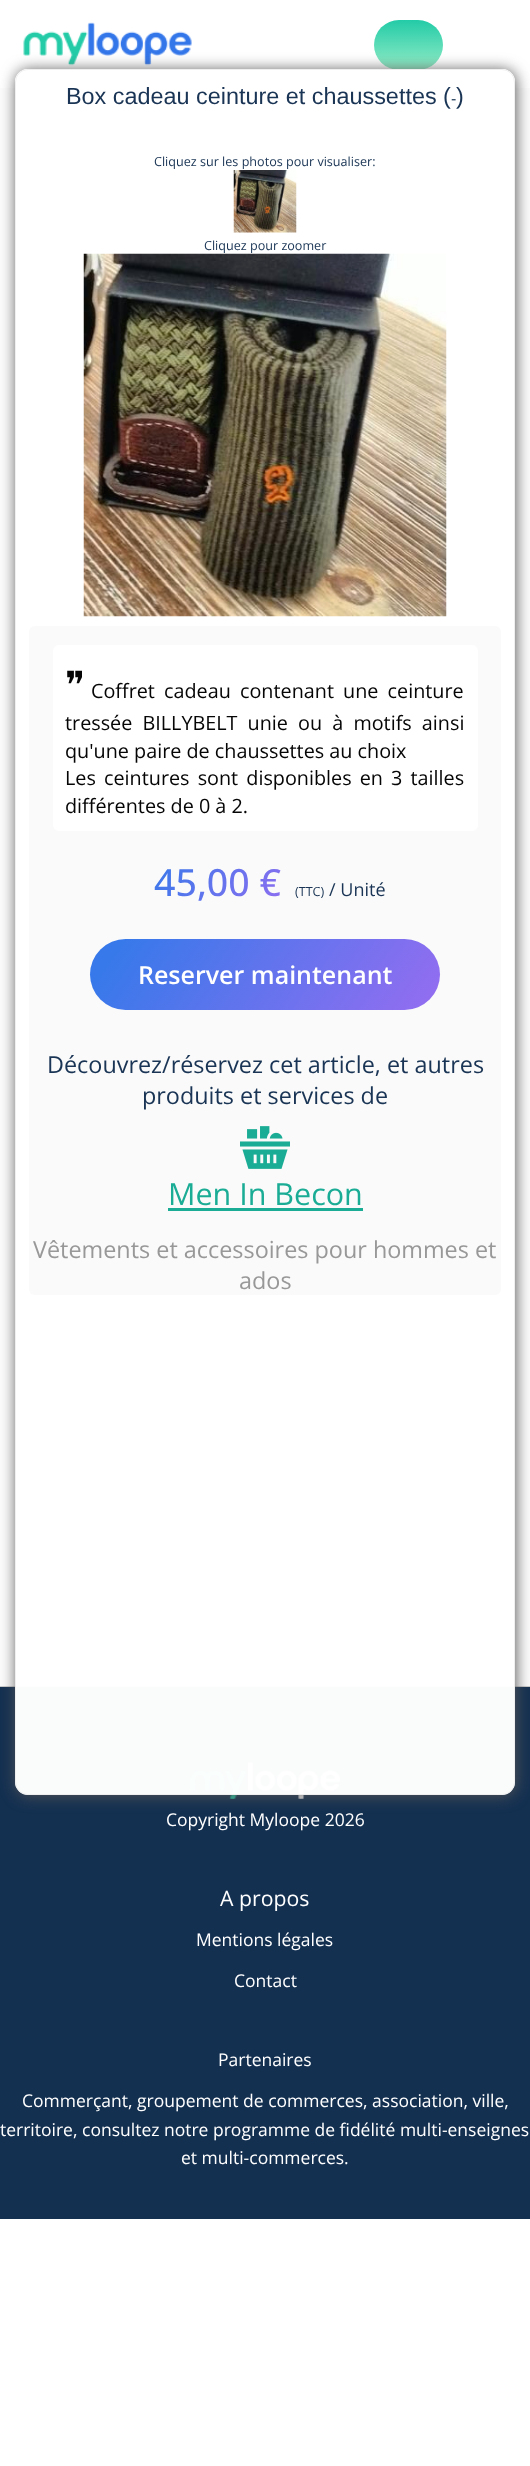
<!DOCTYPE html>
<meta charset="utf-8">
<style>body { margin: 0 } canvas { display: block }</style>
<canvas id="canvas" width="530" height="2466"></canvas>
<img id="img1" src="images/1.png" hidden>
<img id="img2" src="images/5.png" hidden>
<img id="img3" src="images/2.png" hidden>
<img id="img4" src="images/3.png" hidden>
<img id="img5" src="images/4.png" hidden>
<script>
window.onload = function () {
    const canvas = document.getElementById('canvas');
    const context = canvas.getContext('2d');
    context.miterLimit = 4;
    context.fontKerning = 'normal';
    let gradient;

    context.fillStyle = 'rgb(255, 255, 255)';
    context.fillRect(0, 0, 530, 2466);
    context.drawImage(document.getElementById('img1'), 23, 22, 169, 44);
    gradient = context.createLinearGradient(408, 20, 408, 70);
    gradient.addColorStop(0, 'rgb(35, 203, 167)');
    gradient.addColorStop(1, 'rgb(147, 237, 199)');
    context.fillStyle = gradient;
    context.beginPath();
    context.roundRect(374, 20, 69, 50, 25);
    context.fill();
    context.fillStyle = 'rgb(252, 252, 252)';
    context.fillRect(0, 88, 530, 1598);
    context.fillStyle = 'rgb(20, 48, 81)';
    context.fillRect(0, 1687, 530, 532);
    context.fillStyle = 'rgb(204, 204, 204)';
    context.fillRect(0, 1686, 530, 1);
    context.drawImage(document.getElementById('img2'), 190, 1762, 150, 37);
    context.save();
    context.beginPath();
    context.moveTo(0, 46);
    context.lineTo(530, 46);
    context.lineTo(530, 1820);
    context.lineTo(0, 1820);
    context.closePath();
    context.moveTo(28, 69);
    context.lineTo(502, 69);
    context.bezierCurveTo(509, 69, 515, 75, 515, 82);
    context.lineTo(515, 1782);
    context.bezierCurveTo(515, 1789, 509, 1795, 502, 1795);
    context.lineTo(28, 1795);
    context.bezierCurveTo(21, 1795, 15, 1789, 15, 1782);
    context.lineTo(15, 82);
    context.bezierCurveTo(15, 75, 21, 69, 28, 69);
    context.closePath();
    context.clip('evenodd');
    context.fillStyle = 'rgba(85, 85, 85, 0.98)';
    context.filter = 'blur(7.5px)';
    context.beginPath();
    context.roundRect(16, 70, 500, 1726, 13);
    context.fill();
    context.filter = 'none';
    context.restore();
    context.fillStyle = 'rgba(255, 255, 255, 0.98)';
    context.beginPath();
    context.roundRect(15, 69, 500, 1726, 13);
    context.fill();
    context.beginPath();
    context.roundRect(15.5, 69.5, 499, 1725, 12.5);
    context.strokeStyle = 'rgba(239, 239, 239, 0.98)';
    context.stroke();
    context.drawImage(document.getElementById('img3'), 233, 170, 64, 63);
    context.drawImage(document.getElementById('img4'), 83, 253, 364, 364);
    context.fillStyle = 'rgb(250, 250, 250)';
    context.beginPath();
    context.roundRect(29, 626, 472, 669, 6);
    context.fill();
    context.fillStyle = 'rgb(255, 255, 255)';
    context.beginPath();
    context.roundRect(53, 645, 425, 186, 6);
    context.fill();
    gradient = context.createLinearGradient(131, 880, 445, 1101);
    gradient.addColorStop(0.07, 'rgb(55, 121, 234)');
    gradient.addColorStop(1, 'rgb(167, 107, 242)');
    context.fillStyle = gradient;
    context.beginPath();
    context.roundRect(90, 939, 350, 71, 35.5);
    context.fill();
    context.drawImage(document.getElementById('img5'), 240, 1126, 50, 43);
    context.fillStyle = 'rgb(27, 172, 149)';
    context.fillRect(168, 1208, 195, 3);
    context.font = '23.4px Liberation Sans';
    context.fillStyle = 'rgb(25, 52, 84)';
    context.fillText('Box cadeau ceinture et chaussettes (', 66, 104);
    context.font = '16px Liberation Sans';
    context.fillText('-', 451, 104);
    context.font = '23.4px Liberation Sans';
    context.fillText(')', 456, 104);
    context.font = '12.6px Open Sans';
    context.fillText('Cliquez sur les photos pour visualiser:', 154, 166);
    context.fillText('Cliquez pour zoomer', 204, 250);
    context.font = '37.5px DejaVu Sans';
    context.fillStyle = 'rgb(5, 5, 5)';
    context.fillText('❞', 65, 698);
    context.wordSpacing = '4px';
    context.font = '19.8px Open Sans';
    context.fillText('Coffret cadeau contenant une ceinture', 91, 698);
    context.wordSpacing = '5px';
    context.fillText('tressée BILLYBELT unie ou à motifs ainsi', 65, 730);
    context.wordSpacing = '0px';
    context.fillText('qu\'une paire de chaussettes au choix', 65, 758);
    context.wordSpacing = '3px';
    context.fillText('Les ceintures sont disponibles en 3 tailles', 65, 785);
    context.wordSpacing = '0px';
    context.fillText('différentes de 0 à 2.', 65, 813);
    context.font = '500 37.5px Open Sans';
    gradient = context.createLinearGradient(153, 837, 304, 942);
    gradient.addColorStop(0.07, 'rgb(55, 121, 234)');
    gradient.addColorStop(1, 'rgb(167, 107, 242)');
    context.fillStyle = gradient;
    context.fillText('45,00 €', 154, 896);
    context.font = '12.6px Open Sans';
    context.fillStyle = 'rgb(25, 52, 84)';
    context.fillText('(TTC)', 295, 896);
    context.font = '18px Open Sans';
    context.fillText('/ Unité', 329, 896);
    context.font = '600 25px Open Sans';
    context.fillStyle = 'rgb(255, 255, 255)';
    context.fillText('Reserver maintenant', 138, 984);
    context.font = '23.4px Open Sans';
    context.fillStyle = 'rgb(25, 52, 84)';
    context.fillText('Découvrez/réservez cet article, et autres', 47, 1073);
    context.fillText('produits et services de', 142, 1104);
    context.font = '30.5px Open Sans';
    context.fillStyle = 'rgb(27, 172, 149)';
    context.fillText('Men In Becon', 168, 1205);
    context.font = '23.4px Open Sans';
    context.fillStyle = 'rgb(152, 152, 152)';
    context.fillText('Vêtements et accessoires pour hommes et', 33, 1258);
    context.fillText('ados', 239, 1289);
    context.font = '17.5px Open Sans';
    context.fillStyle = 'rgb(255, 255, 255)';
    context.fillText('Copyright Myloope 2026', 166, 1826);
    context.font = '21.25px Open Sans';
    context.fillText('A propos', 220, 1906);
    context.font = '17.5px Open Sans';
    context.fillText('Mentions légales', 196, 1946);
    context.fillText('Contact', 234, 1987);
    context.fillText('Partenaires', 218, 2066);
    context.fillText('Commerçant, groupement de commerces, association, ville,', 22, 2107);
    context.fillText('territoire, consultez notre programme de fidélité multi-enseignes', 0, 2136);
    context.fillText('et multi-commerces.', 181, 2164);
};
</script>
